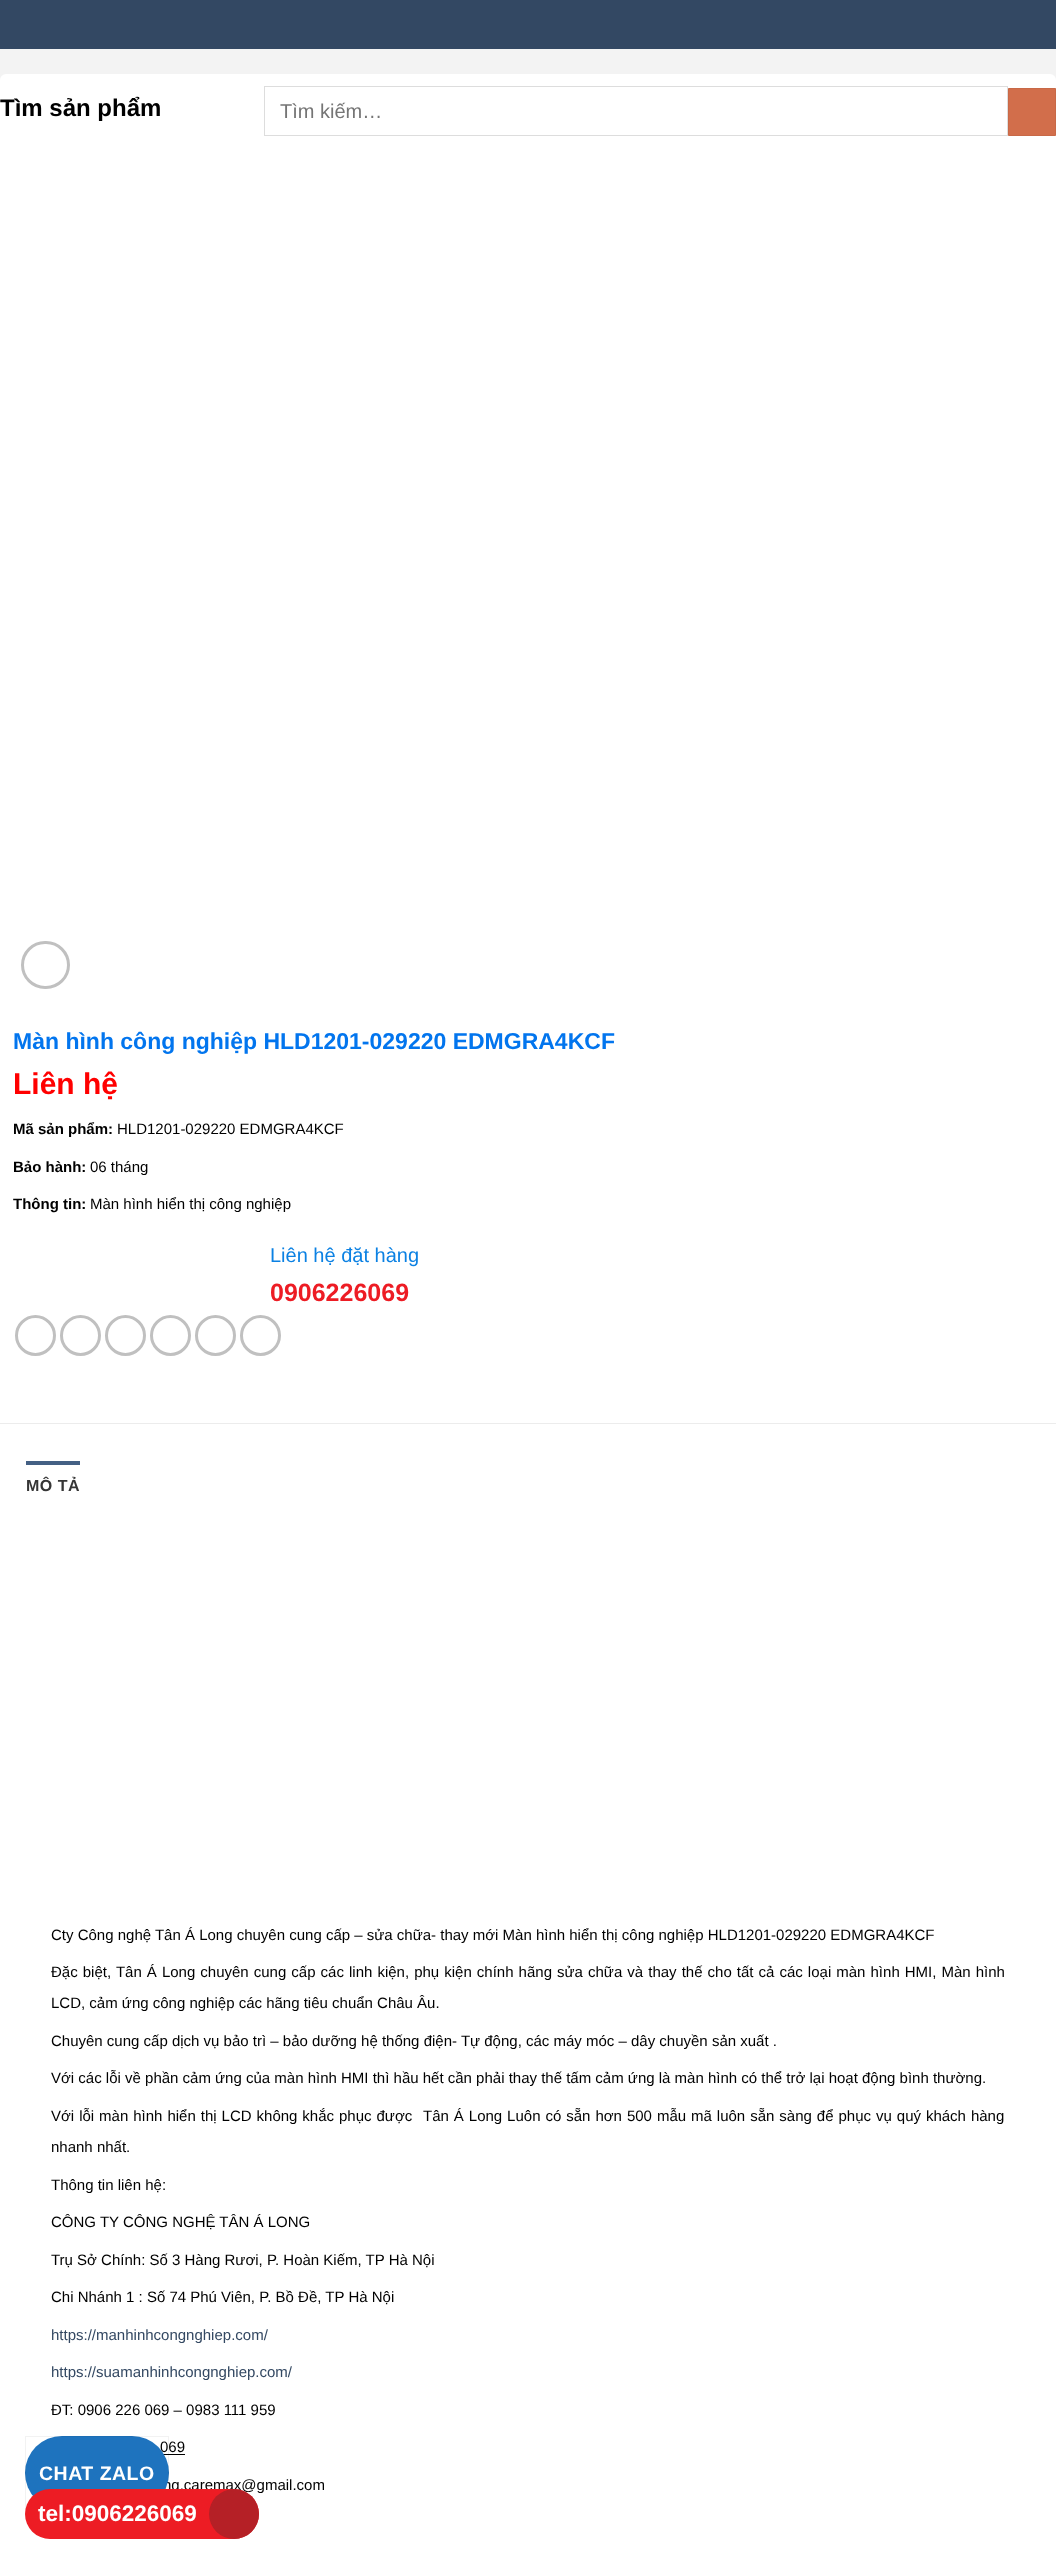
<!DOCTYPE html>
<meta charset="utf-8">
<style>body { margin: 0 } canvas { display: block }</style>
<canvas id="canvas" width="1056" height="2551"></canvas>
<script>
window.onload = function () {
    const canvas = document.getElementById('canvas');
    const context = canvas.getContext('2d');
    context.miterLimit = 4;
    context.fontKerning = 'normal';

    context.fillStyle = 'rgb(243, 243, 243)';
    context.fillRect(0, 0, 1056, 2551);
    context.fillStyle = 'rgb(51, 72, 99)';
    context.fillRect(0, 0, 1056, 49);
    context.fillStyle = 'rgb(255, 255, 255)';
    context.beginPath();
    context.roundRect(0, 74, 1056, 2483, 6);
    context.fill();
    context.strokeStyle = 'rgb(221, 221, 221)';
    context.strokeRect(264.5, 86.5, 743, 49);
    context.fillStyle = 'rgb(210, 110, 75)';
    context.beginPath();
    context.rect(1008.5, 88.5, 47, 47);
    context.fill();
    context.strokeStyle = 'rgb(200, 105, 71)';
    context.stroke();
    context.beginPath();
    context.roundRect(22.5, 942.5, 46, 45, 22.5);
    context.strokeStyle = 'rgb(192, 192, 192)';
    context.lineWidth = 3;
    context.stroke();
    context.beginPath();
    context.arc(35.5, 1335.5, 19, 0, 2 * Math.PI);
    context.stroke();
    context.beginPath();
    context.arc(80.5, 1335.5, 19, 0, 2 * Math.PI);
    context.stroke();
    context.beginPath();
    context.arc(125.5, 1335.5, 19, 0, 2 * Math.PI);
    context.stroke();
    context.beginPath();
    context.arc(170.5, 1335.5, 19, 0, 2 * Math.PI);
    context.stroke();
    context.beginPath();
    context.arc(215.5, 1335.5, 19, 0, 2 * Math.PI);
    context.stroke();
    context.beginPath();
    context.arc(260.5, 1335.5, 19, 0, 2 * Math.PI);
    context.stroke();
    context.fillStyle = 'rgb(236, 236, 236)';
    context.fillRect(0, 1423, 1056, 1);
    context.fillStyle = 'rgb(68, 96, 132)';
    context.fillRect(26, 1461, 54, 4);
    context.fillStyle = 'rgb(0, 0, 0)';
    context.fillRect(163, 2454, 22, 1);
    context.font = 'bold 24px Liberation Sans';
    context.fillText('Tìm sản phẩm', 0, 116);
    context.font = '20px Liberation Sans';
    context.fillStyle = 'rgb(117, 117, 117)';
    context.fillText('Tìm kiếm…', 280, 118);
    context.font = 'bold 23px Liberation Sans';
    context.fillStyle = 'rgb(2, 117, 238)';
    context.fillText('Màn hình công nghiệp HLD1201-029220 EDMGRA4KCF', 13, 1049);
    context.font = 'bold 30px Liberation Sans';
    context.fillStyle = 'rgb(255, 0, 0)';
    context.fillText('Liên hệ', 13, 1094);
    context.font = 'bold 15px Liberation Sans';
    context.fillStyle = 'rgb(0, 0, 0)';
    context.fillText('Mã sản phẩm:', 13, 1134);
    context.font = '15px Liberation Sans';
    context.fillText('HLD1201-029220 EDMGRA4KCF', 117, 1134);
    context.font = 'bold 15px Liberation Sans';
    context.fillText('Bảo hành:', 13, 1172);
    context.font = '15px Liberation Sans';
    context.fillText('06 tháng', 90, 1172);
    context.font = 'bold 15px Liberation Sans';
    context.fillText('Thông tin:', 13, 1209);
    context.font = '15px Liberation Sans';
    context.fillText('Màn hình hiển thị công nghiệp', 90, 1209);
    context.font = '20px Liberation Sans';
    context.fillStyle = 'rgb(11, 129, 227)';
    context.fillText('Liên hệ đặt hàng', 270, 1262);
    context.font = 'bold 25px Liberation Sans';
    context.fillStyle = 'rgb(237, 28, 36)';
    context.fillText('0906226069', 270, 1301);
    context.letterSpacing = '0.5px';
    context.font = 'bold 16px Liberation Sans';
    context.fillStyle = 'rgb(54, 54, 54)';
    context.fillText('MÔ TẢ', 26, 1491);
    context.letterSpacing = '0px';
    context.font = '15px Liberation Sans';
    context.fillStyle = 'rgb(0, 0, 0)';
    context.fillText('Cty Công nghệ Tân Á Long chuyên cung cấp – sửa chữa- thay mới Màn hình hiển thị công nghiệp HLD1201-029220 EDMGRA4KCF', 51, 1940);
    context.wordSpacing = '0.9px';
    context.fillText('Đặc biệt, Tân Á Long chuyên cung cấp các linh kiện, phụ kiện chính hãng sửa chữa và thay thế cho tất cả các loại màn hình HMI, Màn hình', 51, 1977);
    context.wordSpacing = '0px';
    context.fillText('LCD, cảm ứng công nghiệp các hãng tiêu chuẩn Châu Âu.', 51, 2008);
    context.fillText('Chuyên cung cấp dịch vụ bảo trì – bảo dưỡng hệ thống điện- Tự động, các máy móc – dây chuyền sản xuất .', 51, 2046);
    context.fillText('Với các lỗi về phần cảm ứng của màn hình HMI thì hầu hết cần phải thay thế tấm cảm ứng là màn hình có thể trở lại hoạt động bình thường.', 51, 2083);
    context.wordSpacing = '0.8px';
    context.fillText('Với lỗi màn hình hiển thị LCD không khắc phục được', 51, 2121);
    context.fillText('Tân Á Long Luôn có sẵn hơn 500 mẫu mã luôn sẵn sàng để phục vụ quý khách hàng', 423, 2121);
    context.wordSpacing = '0px';
    context.fillText('nhanh nhất.', 51, 2152);
    context.fillText('Thông tin liên hệ:', 51, 2190);
    context.fillText('CÔNG TY CÔNG NGHỆ TÂN Á LONG', 51, 2227);
    context.fillText('Trụ Sở Chính: Số 3 Hàng Rươi, P. Hoàn Kiếm, TP Hà Nội', 51, 2265);
    context.fillText('Chi Nhánh 1 : Số 74 Phú Viên, P. Bồ Đề, TP Hà Nội', 51, 2302);
    context.fillStyle = 'rgb(51, 72, 98)';
    context.fillText('https://manhinhcongnghiep.com/', 51, 2340);
    context.fillText('https://suamanhinhcongnghiep.com/', 51, 2377);
    context.fillStyle = 'rgb(0, 0, 0)';
    context.fillText('ĐT: 0906 226 069 – 0983 111 959', 51, 2415);
    context.fillText('069', 160, 2452);
    context.fillText('ng.caremax@gmail.com', 163, 2490);
    context.fillStyle = 'rgb(30, 115, 190)';
    context.beginPath();
    context.roundRect(25, 2436, 144, 74, 37);
    context.fill();
    context.strokeStyle = 'rgba(0, 0, 0, 0.05)';
    context.lineWidth = 1;
    context.strokeRect(25.5, 2436.5, 143, 73);
    context.letterSpacing = '0.5px';
    context.font = 'bold 19.5px Liberation Sans';
    context.fillStyle = 'rgb(255, 255, 255)';
    context.fillText('CHAT ZALO', 39, 2480);
    context.fillStyle = 'rgb(237, 28, 36)';
    context.beginPath();
    context.roundRect(25, 2489, 234, 50, 25);
    context.fill();
    context.letterSpacing = '0px';
    context.font = 'bold 22.5px Liberation Sans';
    context.fillStyle = 'rgb(255, 255, 255)';
    context.fillText('tel:0906226069', 38, 2521);
    context.fillStyle = 'rgb(181, 32, 38)';
    context.beginPath();
    context.arc(234, 2514, 25, 0, 2 * Math.PI);
    context.fill();
};
</script>
